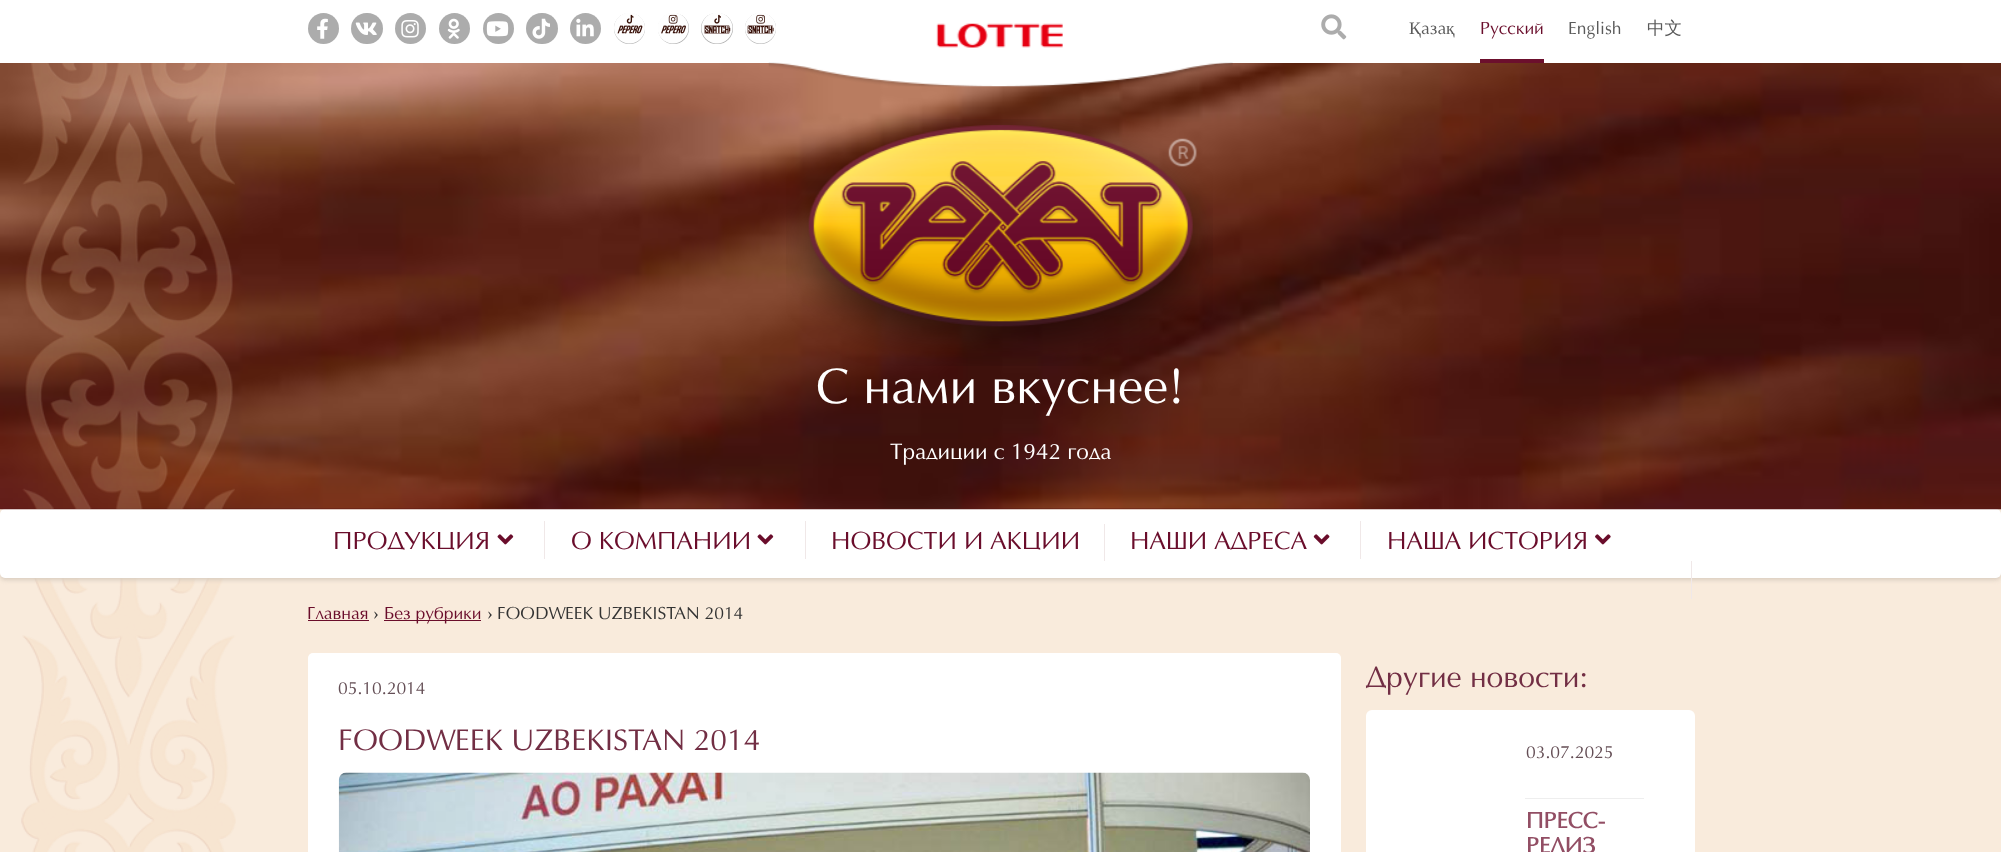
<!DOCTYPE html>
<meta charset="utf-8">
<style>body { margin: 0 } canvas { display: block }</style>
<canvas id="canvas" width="2001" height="852"></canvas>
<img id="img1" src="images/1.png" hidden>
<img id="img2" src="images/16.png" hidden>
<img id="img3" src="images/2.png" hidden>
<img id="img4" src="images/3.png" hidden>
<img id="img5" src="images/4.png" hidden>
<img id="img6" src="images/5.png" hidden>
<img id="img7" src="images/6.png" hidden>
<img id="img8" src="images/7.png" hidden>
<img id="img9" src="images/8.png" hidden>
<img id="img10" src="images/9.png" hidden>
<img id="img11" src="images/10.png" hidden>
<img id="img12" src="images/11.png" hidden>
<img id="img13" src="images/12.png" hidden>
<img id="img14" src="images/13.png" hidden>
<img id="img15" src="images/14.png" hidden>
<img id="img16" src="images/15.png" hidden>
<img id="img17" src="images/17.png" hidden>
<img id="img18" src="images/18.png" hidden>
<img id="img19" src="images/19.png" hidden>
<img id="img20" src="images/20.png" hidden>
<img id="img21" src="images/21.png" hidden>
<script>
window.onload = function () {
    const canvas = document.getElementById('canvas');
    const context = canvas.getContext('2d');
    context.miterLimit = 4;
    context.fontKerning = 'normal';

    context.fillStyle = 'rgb(249, 235, 220)';
    context.fillRect(0, 0, 2001, 852);
    context.drawImage(document.getElementById('img1'), 21, 578, 215, 274);
    context.fillStyle = 'rgb(216, 204, 191)';
    context.filter = 'blur(2px)';
    context.beginPath();
    context.roundRect(0, 511, 2001, 69, 5);
    context.fill();
    context.filter = 'none';
    context.fillStyle = 'rgb(89, 22, 23)';
    context.fillRect(0, 508, 2001, 1);
    context.fillStyle = 'rgb(255, 255, 255)';
    context.fillRect(0, 0, 2001, 63);
    context.beginPath();
    context.roundRect(0, 509, 2001, 69, 5);
    context.fill();
    context.drawImage(document.getElementById('img2'), 0, 63, 2001, 447);
    context.drawImage(document.getElementById('img3'), 768, 23, 465, 64);
    context.fillStyle = 'rgb(172, 172, 172)';
    context.beginPath();
    context.arc(323.5, 28.5, 15.5, 0, 2 * Math.PI);
    context.fill();
    context.drawImage(document.getElementById('img4'), 317, 18, 11, 21);
    context.beginPath();
    context.roundRect(351, 13, 32, 31, 15.5);
    context.fill();
    context.drawImage(document.getElementById('img5'), 355, 22, 22, 13);
    context.beginPath();
    context.arc(410.5, 28.5, 15.5, 0, 2 * Math.PI);
    context.fill();
    context.drawImage(document.getElementById('img6'), 401, 20, 18, 18);
    context.beginPath();
    context.arc(454.5, 28.5, 15.5, 0, 2 * Math.PI);
    context.fill();
    context.drawImage(document.getElementById('img7'), 447, 18, 13, 21);
    context.beginPath();
    context.arc(498.5, 28.5, 15.5, 0, 2 * Math.PI);
    context.fill();
    context.drawImage(document.getElementById('img8'), 486, 21, 23, 16);
    context.beginPath();
    context.roundRect(526, 13, 32, 31, 15.5);
    context.fill();
    context.drawImage(document.getElementById('img9'), 532, 18, 18, 21);
    context.beginPath();
    context.arc(585.5, 28.5, 15.5, 0, 2 * Math.PI);
    context.fill();
    context.drawImage(document.getElementById('img10'), 576, 18, 18, 19);
    context.beginPath();
    context.arc(629.5, 28.5, 15.5, 0, 2 * Math.PI);
    context.fill();
    context.drawImage(document.getElementById('img11'), 614, 13, 31, 31);
    context.beginPath();
    context.arc(673.5, 28.5, 15.5, 0, 2 * Math.PI);
    context.fill();
    context.drawImage(document.getElementById('img12'), 658, 13, 31, 31);
    context.beginPath();
    context.roundRect(701, 13, 32, 31, 15.5);
    context.fill();
    context.drawImage(document.getElementById('img13'), 701, 13, 32, 31);
    context.beginPath();
    context.arc(760.5, 28.5, 15.5, 0, 2 * Math.PI);
    context.fill();
    context.drawImage(document.getElementById('img14'), 745, 13, 31, 31);
    context.drawImage(document.getElementById('img15'), 1321, 14, 26, 26);
    context.fillStyle = 'rgb(108, 15, 45)';
    context.fillRect(1480, 59, 64, 4);
    context.drawImage(document.getElementById('img16'), 22, 63, 213, 446);
    context.drawImage(document.getElementById('img17'), 786, 119, 427, 247);
    context.drawImage(document.getElementById('img18'), 497, 534, 17, 11);
    context.fillStyle = 'rgb(240, 232, 232)';
    context.fillRect(544, 521, 1, 38);
    context.drawImage(document.getElementById('img18'), 757, 534, 17, 11);
    context.fillRect(805, 521, 1, 38);
    context.fillRect(1104, 524, 1, 37);
    context.drawImage(document.getElementById('img19'), 1313, 534, 17, 11);
    context.fillRect(1360, 521, 1, 38);
    context.drawImage(document.getElementById('img20'), 1595, 534, 16, 11);
    context.fillRect(1691, 561, 1, 38);
    context.fillStyle = 'rgb(106, 13, 43)';
    context.fillRect(308, 620, 61, 1);
    context.fillRect(384, 620, 97, 1);
    context.fillStyle = 'rgb(255, 255, 255)';
    context.beginPath();
    context.roundRect(308, 653, 1033, 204, 5);
    context.fill();
    context.drawImage(document.getElementById('img21'), 338, 772, 972, 80);
    context.beginPath();
    context.roundRect(1366, 710, 329, 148, 6);
    context.fill();
    context.fillStyle = 'rgb(238, 238, 238)';
    context.fillRect(1525, 798, 119, 1);
    context.font = '17.5px Liberation Serif';
    context.fillStyle = 'rgb(90, 90, 90)';
    context.fillText('Қ', 1409, 34);
    context.font = '17.5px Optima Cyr';
    context.fillText('аза', 1421, 34);
    context.font = '17.5px Liberation Serif';
    context.fillText('қ', 1446, 34);
    context.font = '17.5px Optima Cyr';
    context.fillStyle = 'rgb(106, 13, 43)';
    context.fillText('Русский', 1480, 34);
    context.fillStyle = 'rgb(90, 90, 90)';
    context.fillText('English', 1568, 34);
    context.font = '500 17.5px WenQuanYi Zen Hei';
    context.fillText('中文', 1647, 34);
    context.font = '50px Optima Cyr';
    context.fillStyle = 'rgb(255, 255, 255)';
    context.fillText('С нами вкуснее!', 816, 403);
    context.font = '22.5px Optima Cyr';
    context.fillText('Традиции с 1942 года', 890, 459);
    context.font = '25px Optima Cyr';
    context.fillStyle = 'rgb(106, 13, 43)';
    context.fillText('ПРОДУКЦИЯ', 333, 549);
    context.fillText('О КОМПАНИИ', 571, 549);
    context.fillText('НОВОСТИ И АКЦИИ', 831, 549);
    context.fillText('НАШИ АДРЕСА', 1130, 549);
    context.fillText('НАША ИСТОРИЯ', 1387, 549);
    context.font = '17.5px Optima Cyr';
    context.fillText('Главная', 307, 619);
    context.font = '17.5px Liberation Serif';
    context.fillStyle = 'rgb(51, 51, 51)';
    context.fillText('›', 373, 619);
    context.font = '17.5px Optima Cyr';
    context.fillStyle = 'rgb(106, 13, 43)';
    context.fillText('Без рубрики', 384, 619);
    context.font = '17.5px Liberation Serif';
    context.fillStyle = 'rgb(51, 51, 51)';
    context.fillText('›', 487, 619);
    context.font = '17.5px Optima Cyr';
    context.fillText('FOODWEEK UZBEKISTAN 2014', 497, 619);
    context.fillStyle = 'rgb(100, 78, 85)';
    context.fillText('05.10.2014', 338, 694);
    context.font = '30px Optima Cyr';
    context.fillStyle = 'rgb(114, 46, 68)';
    context.fillText('FOODWEEK UZBEKISTAN 2014', 338, 750);
    context.fillText('Другие новости:', 1366, 687);
    context.font = '17.5px Optima Cyr';
    context.fillStyle = 'rgb(100, 78, 85)';
    context.fillText('03.07.2025', 1526, 758);
    context.font = 'bold 22.5px Optima Cyr';
    context.fillStyle = 'rgb(146, 78, 100)';
    context.fillText('ПРЕСС-', 1526, 828);
    context.fillText('РЕЛИЗ', 1526, 853);
};
</script>
